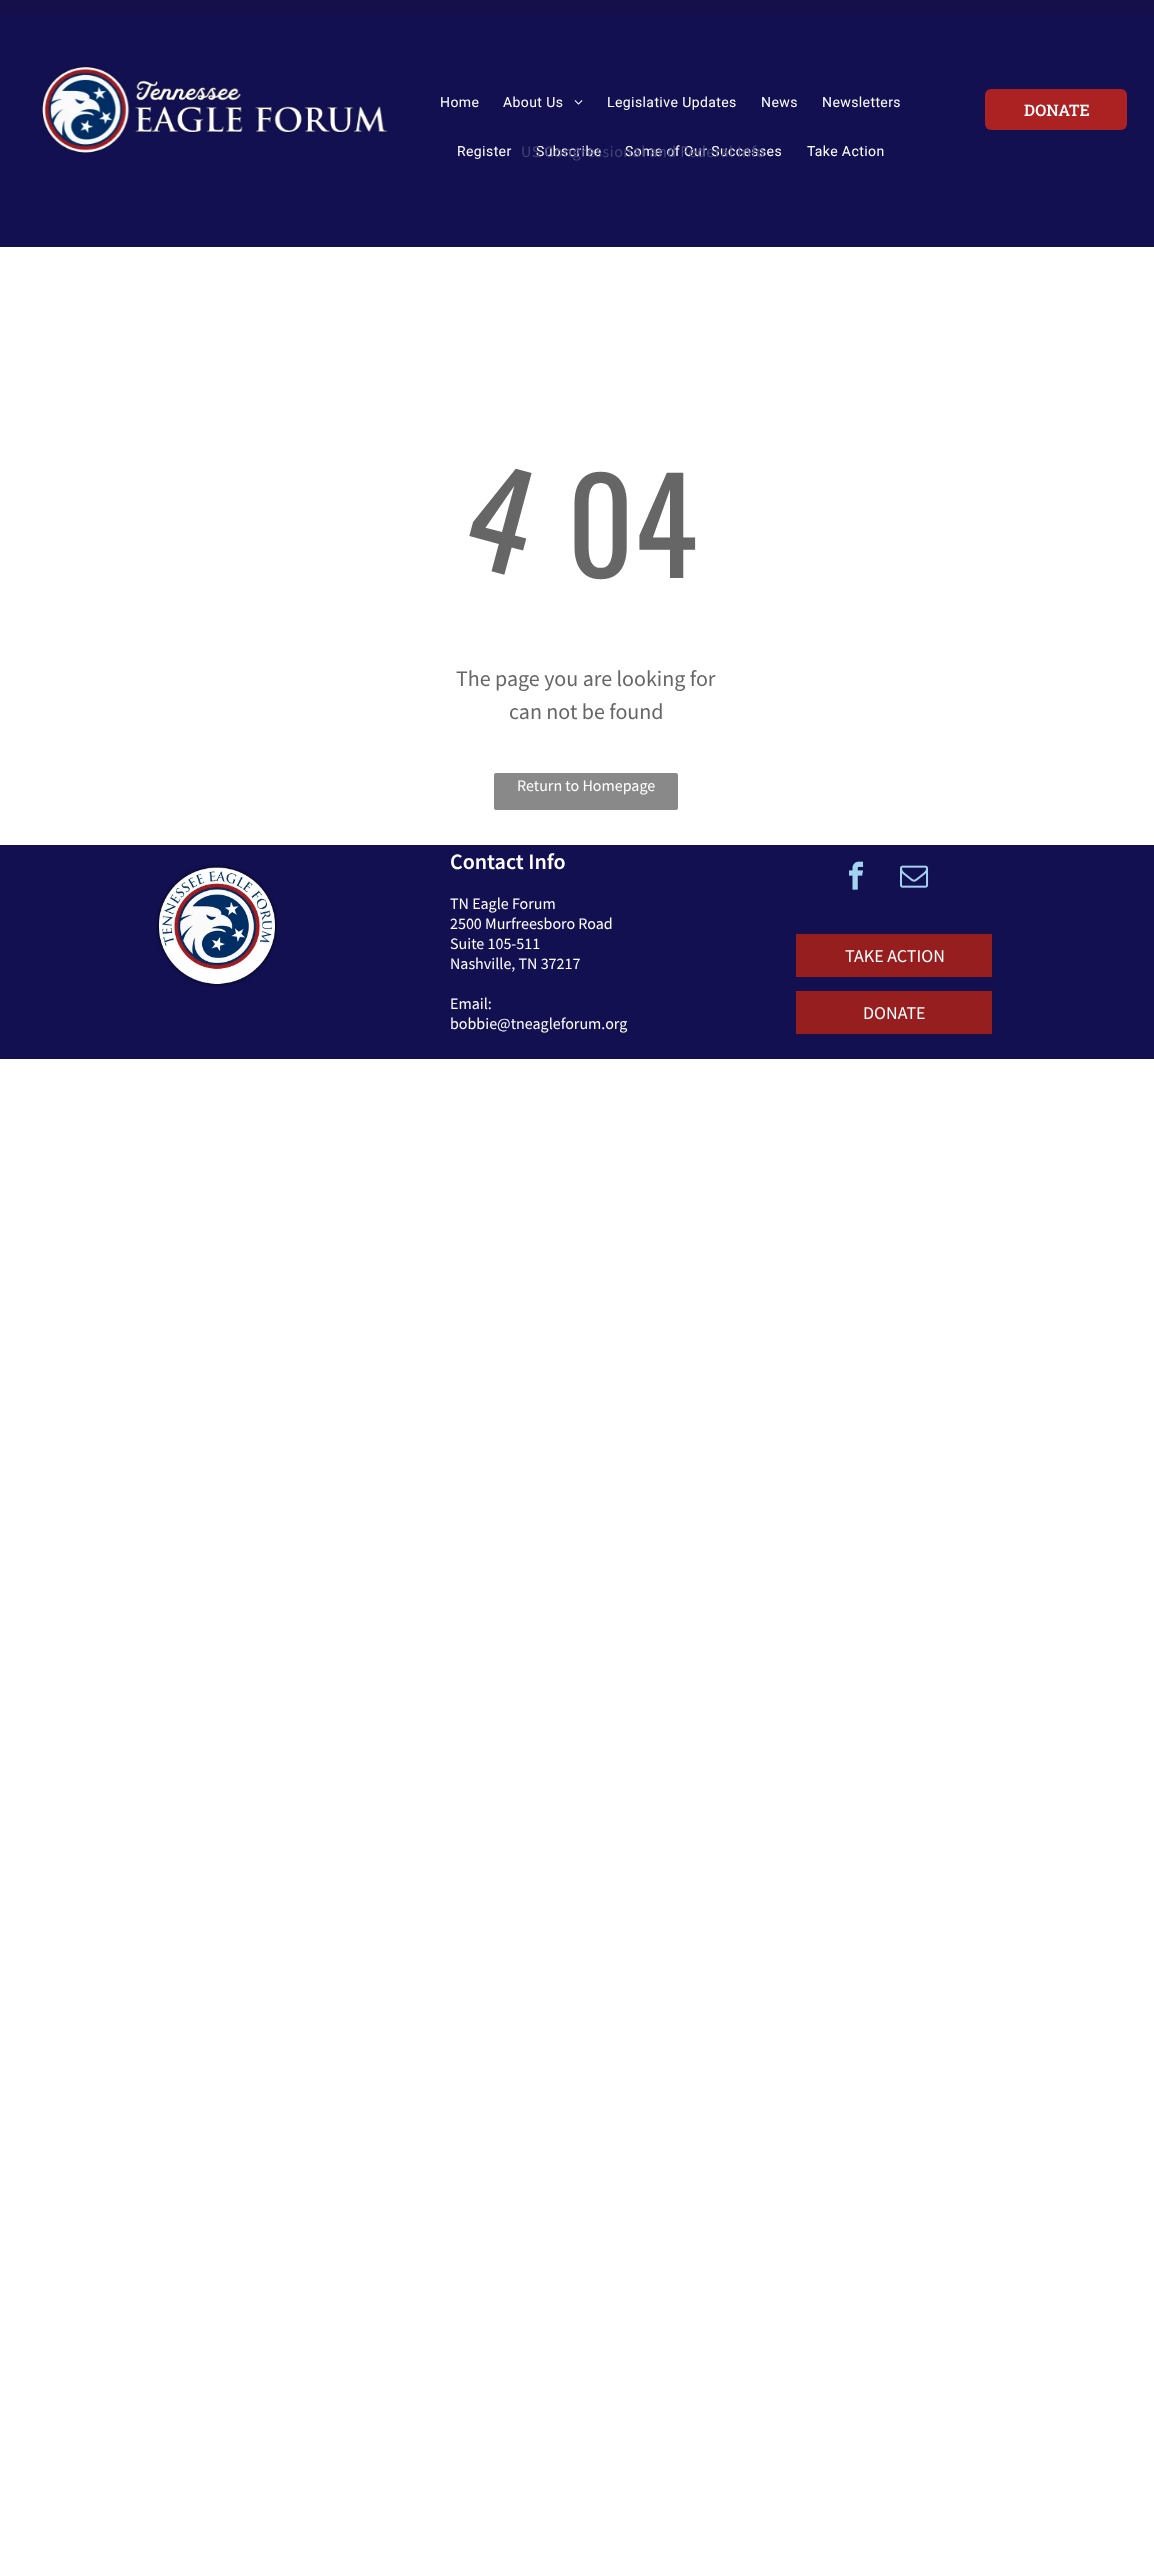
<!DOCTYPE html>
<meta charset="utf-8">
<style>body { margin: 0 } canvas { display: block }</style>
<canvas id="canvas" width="1154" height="2566"></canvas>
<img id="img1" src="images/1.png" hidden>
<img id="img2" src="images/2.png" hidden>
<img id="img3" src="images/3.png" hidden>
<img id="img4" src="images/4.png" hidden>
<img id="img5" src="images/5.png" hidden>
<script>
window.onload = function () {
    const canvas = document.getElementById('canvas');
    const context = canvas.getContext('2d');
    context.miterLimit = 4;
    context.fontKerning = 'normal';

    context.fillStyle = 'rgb(255, 255, 255)';
    context.fillRect(0, 0, 1154, 2566);
    context.fillStyle = 'rgb(21, 15, 74)';
    context.fillRect(0, 0, 1154, 15);
    context.fillStyle = 'rgb(19, 16, 82)';
    context.fillRect(0, 15, 1154, 232);
    context.drawImage(document.getElementById('img1'), 41, 66, 347, 88);
    context.drawImage(document.getElementById('img2'), 574, 100, 9, 5);
    context.fillStyle = 'rgb(172, 33, 33)';
    context.beginPath();
    context.roundRect(985, 89, 142, 41, 6);
    context.fill();
    context.fillStyle = 'rgb(137, 137, 137)';
    context.beginPath();
    context.roundRect(494, 773, 184, 37, 2);
    context.fill();
    context.fillStyle = 'rgb(19, 16, 82)';
    context.fillRect(0, 845, 1154, 214);
    context.drawImage(document.getElementById('img3'), 156, 864, 122, 123);
    context.drawImage(document.getElementById('img4'), 849, 861, 15, 29);
    context.drawImage(document.getElementById('img5'), 900, 865, 29, 23);
    context.fillStyle = 'rgb(151, 30, 30)';
    context.beginPath();
    context.roundRect(795, 933, 198, 45, 1);
    context.fill();
    context.strokeStyle = 'rgb(21, 15, 74)';
    context.lineWidth = 2;
    context.stroke();
    context.beginPath();
    context.roundRect(795, 990, 198, 45, 1);
    context.fill();
    context.stroke();
    context.letterSpacing = '0.4px';
    context.font = '14px Heebo';
    context.fillStyle = 'rgb(255, 255, 255)';
    context.fillText('About Us', 503, 107);
    context.fillText('Home', 440, 107);
    context.fillText('Legislative Updates', 607, 107);
    context.fillText('News', 761, 107);
    context.fillText('Newsletters', 822, 107);
    context.fillText('Register', 457, 156);
    context.fillText('Subscribe', 536, 156);
    context.fillText('Some of Our Successes', 625, 156);
    context.letterSpacing = '0.5px';
    context.font = '16px Source Sans Pro';
    context.fillStyle = 'rgb(68, 66, 118)';
    context.fillText('US Congressional and Federal Info', 521, 157);
    context.letterSpacing = '0.4px';
    context.font = '14px Heebo';
    context.fillStyle = 'rgb(255, 255, 255)';
    context.fillText('Take Action', 807, 156);
    context.letterSpacing = '0px';
    context.font = '500 16px Roboto Slab';
    context.fillText('DONATE', 1024, 116);
    context.font = '130px Oswald';
    context.fillStyle = 'rgb(102, 102, 102)';
    context.save();
    context.translate(457, 562);
    context.rotate(15 * Math.PI / 180);
    context.fillText('4', 0, 0);
    context.restore();
    context.fillText('04', 567, 578);
    context.font = '22px Source Sans Pro';
    context.fillText('The page you are looking for', 456, 686);
    context.fillText('can not be found', 509, 719);
    context.font = '16px Source Sans Pro';
    context.fillStyle = 'rgb(255, 255, 255)';
    context.fillText('Return to Homepage', 517, 791);
    context.font = '600 22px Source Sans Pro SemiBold';
    context.fillText('Contact Info', 450, 869);
    context.font = '16px Source Sans Pro';
    context.fillText('TN Eagle Forum', 450, 909);
    context.fillText('2500 Murfreesboro Road', 450, 929);
    context.fillText('Suite 105-511', 450, 949);
    context.fillText('Nashville, TN 37217', 450, 969);
    context.fillText('Email:', 450, 1009);
    context.fillText('bobbie@tneagleforum.org', 450, 1029);
    context.font = '18px Source Sans Pro';
    context.fillText('TAKE ACTION', 845, 962);
    context.fillText('DONATE', 863, 1019);
};
</script>
